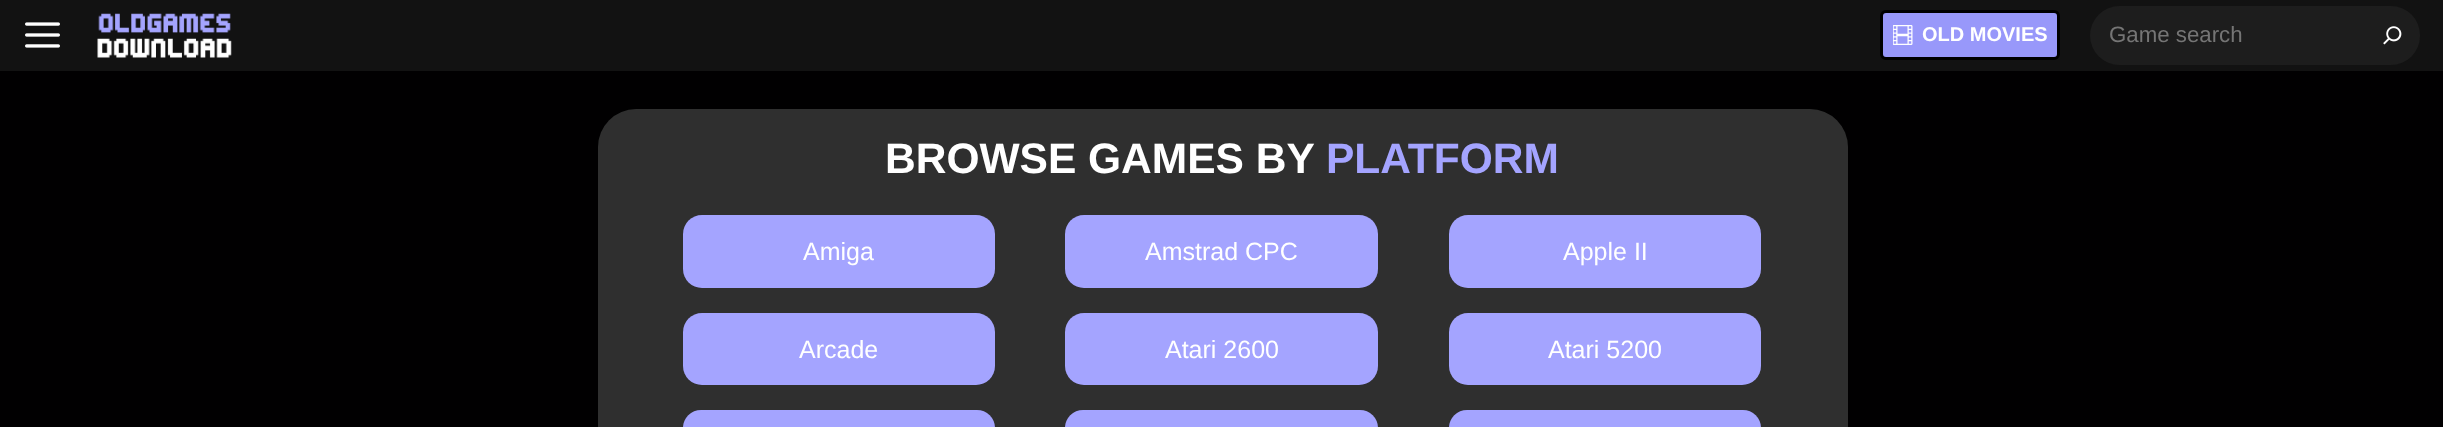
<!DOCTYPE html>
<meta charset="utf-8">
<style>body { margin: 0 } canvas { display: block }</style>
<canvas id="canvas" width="2443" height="427"></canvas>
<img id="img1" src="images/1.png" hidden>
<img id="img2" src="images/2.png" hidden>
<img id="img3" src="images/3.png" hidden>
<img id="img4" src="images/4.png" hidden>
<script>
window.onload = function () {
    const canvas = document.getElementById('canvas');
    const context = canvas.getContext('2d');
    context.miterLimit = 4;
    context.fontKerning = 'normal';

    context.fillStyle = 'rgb(1, 0, 1)';
    context.fillRect(0, 0, 2443, 427);
    context.fillStyle = 'rgb(18, 18, 18)';
    context.fillRect(0, 0, 2443, 71);
    context.drawImage(document.getElementById('img1'), 25, 22, 35, 26);
    context.drawImage(document.getElementById('img2'), 97, 13, 135, 45);
    context.fillStyle = 'rgb(152, 152, 250)';
    context.beginPath();
    context.roundRect(1881.5, 11.5, 177, 47, 4.5);
    context.fill();
    context.strokeStyle = 'rgb(0, 0, 0)';
    context.lineWidth = 3;
    context.stroke();
    context.drawImage(document.getElementById('img3'), 1893, 25, 20, 20);
    context.fillStyle = 'rgb(29, 29, 29)';
    context.beginPath();
    context.roundRect(2090, 6, 275, 59, [29.5, 0, 0, 29.5]);
    context.fill();
    context.beginPath();
    context.roundRect(2365, 6, 55, 59, [0, 29, 29, 0]);
    context.fill();
    context.drawImage(document.getElementById('img4'), 2383, 26, 19, 19);
    context.fillStyle = 'rgb(47, 47, 47)';
    context.beginPath();
    context.roundRect(598, 109, 1250, 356, 38);
    context.fill();
    context.fillStyle = 'rgb(164, 164, 255)';
    context.beginPath();
    context.roundRect(683, 215, 312, 73, 19);
    context.fill();
    context.beginPath();
    context.roundRect(1065, 215, 313, 73, 19);
    context.fill();
    context.beginPath();
    context.roundRect(1449, 215, 312, 73, 19);
    context.fill();
    context.beginPath();
    context.roundRect(683, 313, 312, 72, 19);
    context.fill();
    context.beginPath();
    context.roundRect(1065, 313, 313, 72, 19);
    context.fill();
    context.beginPath();
    context.roundRect(1449, 313, 312, 72, 19);
    context.fill();
    context.beginPath();
    context.roundRect(683, 410, 312, 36, 19);
    context.fill();
    context.beginPath();
    context.roundRect(1065, 410, 313, 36, 19);
    context.fill();
    context.beginPath();
    context.roundRect(1449, 410, 312, 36, 19);
    context.fill();
    context.font = 'bold 20px Liberation Sans';
    context.fillStyle = 'rgb(255, 255, 255)';
    context.fillText('OLD MOVIES', 1922, 41);
    context.font = '22.25px Liberation Sans';
    context.fillStyle = 'rgb(117, 117, 117)';
    context.fillText('Game search', 2109, 42);
    context.font = 'bold 42.5px Liberation Sans';
    context.fillStyle = 'rgb(255, 255, 255)';
    context.fillText('BROWSE GAMES BY', 885, 173);
    context.fillStyle = 'rgb(164, 164, 255)';
    context.fillText('PLATFORM', 1326, 173);
    context.font = '25px Liberation Sans';
    context.fillStyle = 'rgb(255, 255, 255)';
    context.fillText('Amiga', 803, 260);
    context.fillText('Amstrad CPC', 1145, 260);
    context.fillText('Apple II', 1563, 260);
    context.fillText('Arcade', 799, 358);
    context.fillText('Atari 2600', 1165, 358);
    context.fillText('Atari 5200', 1548, 358);
};
</script>
